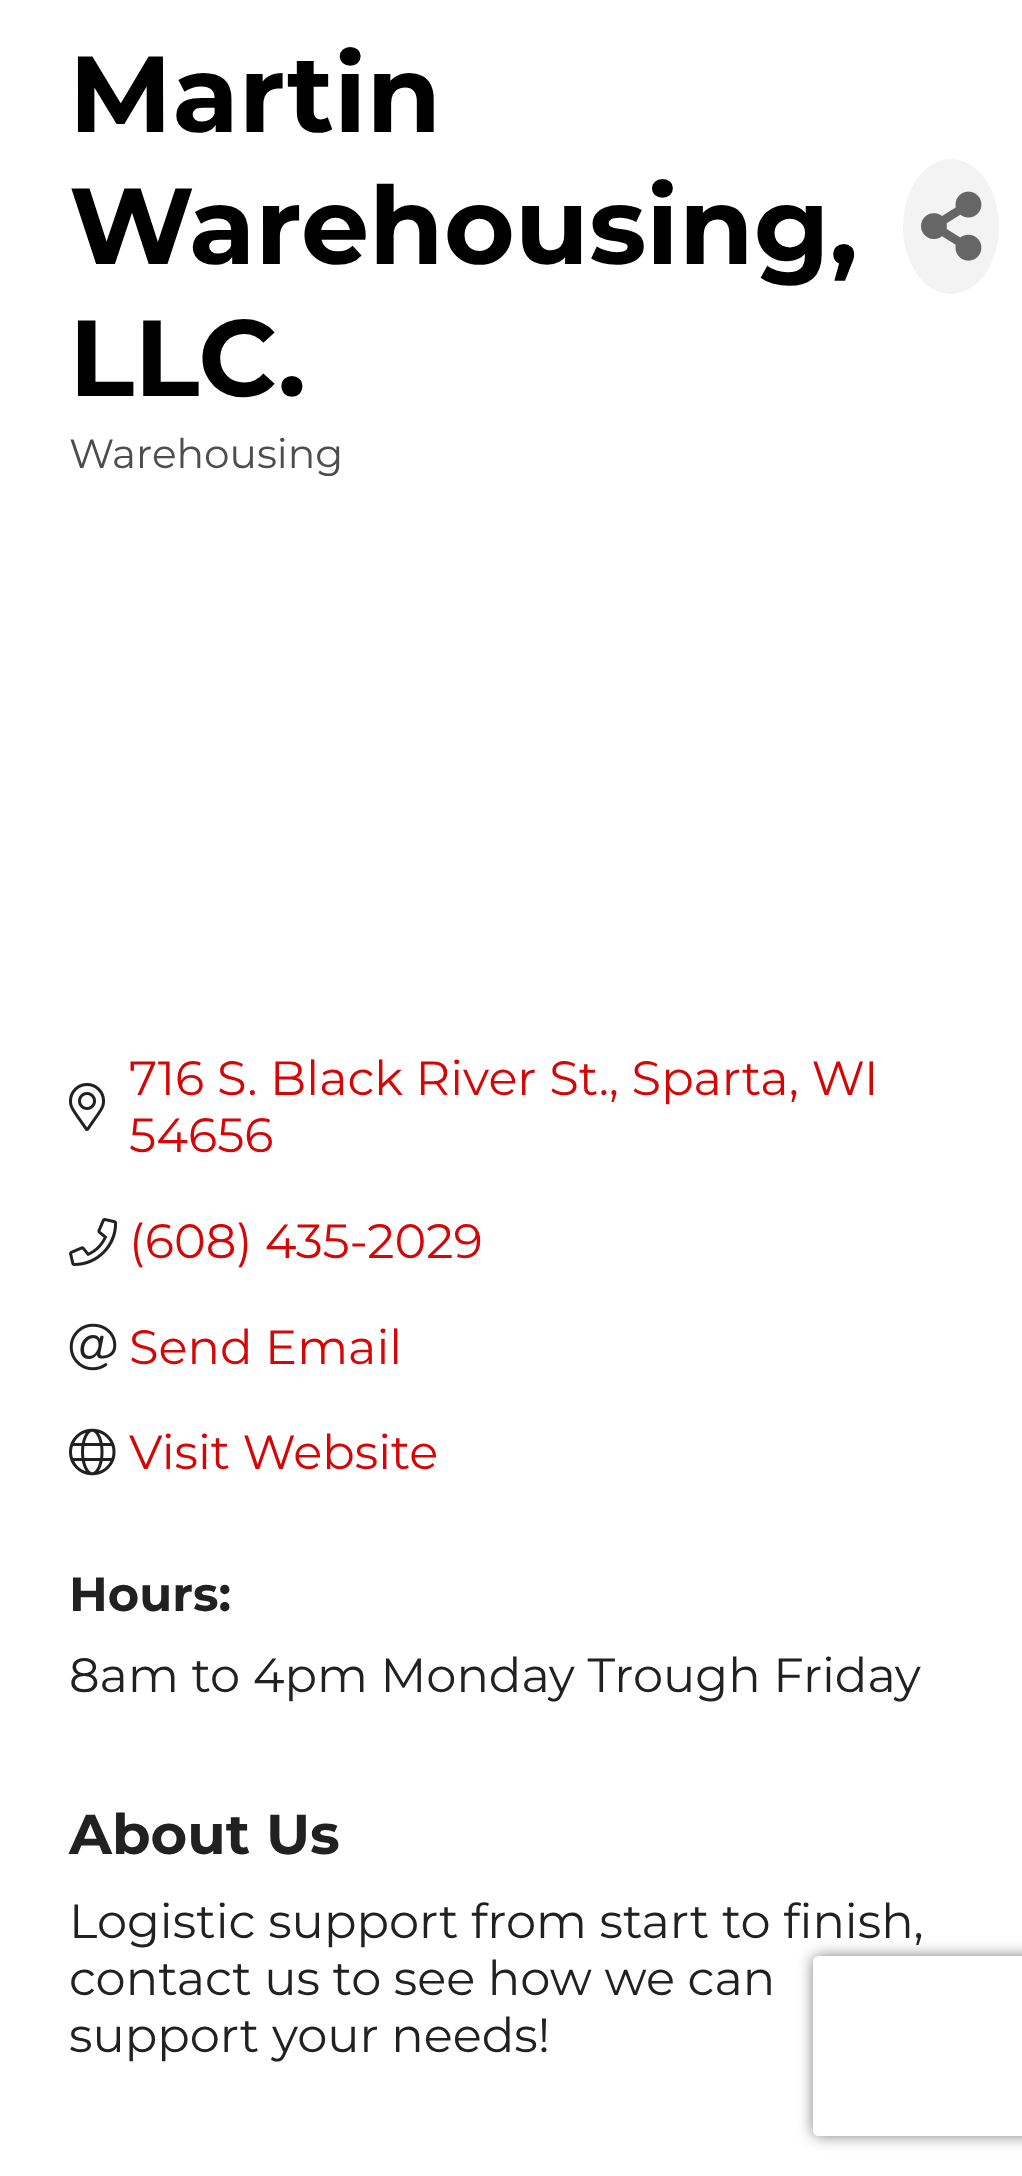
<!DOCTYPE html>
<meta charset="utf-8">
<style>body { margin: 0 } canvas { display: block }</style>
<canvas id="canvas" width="1022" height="2176"></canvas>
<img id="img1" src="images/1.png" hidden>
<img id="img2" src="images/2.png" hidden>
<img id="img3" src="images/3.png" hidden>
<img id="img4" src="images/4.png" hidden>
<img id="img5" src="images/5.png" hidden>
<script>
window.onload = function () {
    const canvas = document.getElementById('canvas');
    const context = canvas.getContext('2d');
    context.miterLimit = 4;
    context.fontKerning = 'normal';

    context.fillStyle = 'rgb(255, 255, 255)';
    context.fillRect(0, 0, 1022, 2176);
    context.fillStyle = 'rgb(243, 243, 243)';
    context.beginPath();
    context.ellipse(951, 226.5, 48, 67.5, 0, 0, 2 * Math.PI);
    context.fill();
    context.drawImage(document.getElementById('img1'), 921, 191, 61, 70);
    context.drawImage(document.getElementById('img2'), 69, 1083, 36, 48);
    context.drawImage(document.getElementById('img3'), 69, 1218, 49, 48);
    context.drawImage(document.getElementById('img4'), 69, 1323, 48, 48);
    context.drawImage(document.getElementById('img5'), 69, 1428, 47, 48);
    context.save();
    context.beginPath();
    context.moveTo(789, 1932);
    context.lineTo(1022, 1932);
    context.lineTo(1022, 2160);
    context.lineTo(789, 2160);
    context.closePath();
    context.moveTo(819, 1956);
    context.lineTo(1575, 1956);
    context.bezierCurveTo(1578.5, 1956, 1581, 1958.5, 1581, 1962);
    context.lineTo(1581, 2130);
    context.bezierCurveTo(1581, 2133.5, 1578.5, 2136, 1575, 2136);
    context.lineTo(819, 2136);
    context.bezierCurveTo(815.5, 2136, 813, 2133.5, 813, 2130);
    context.lineTo(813, 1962);
    context.bezierCurveTo(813, 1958.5, 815.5, 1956, 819, 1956);
    context.closePath();
    context.clip('evenodd');
    context.fillStyle = 'rgb(128, 128, 128)';
    context.filter = 'blur(7.5px)';
    context.beginPath();
    context.roundRect(813, 1956, 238, 180, 6);
    context.fill();
    context.filter = 'none';
    context.restore();
    context.font = 'bold 108px Montserrat';
    context.fillStyle = 'rgb(0, 0, 0)';
    context.fillText('Martin', 69, 132);
    context.fillText('Warehousing,', 69, 264);
    context.fillText('LLC.', 69, 396);
    context.font = '40.75px Montserrat';
    context.fillStyle = 'rgb(77, 77, 77)';
    context.fillText('Warehousing', 69, 468);
    context.font = '48px Montserrat';
    context.fillStyle = 'rgb(212, 6, 6)';
    context.fillText('716 S. Black River St., Sparta, WI', 129, 1095);
    context.fillText('54656', 129, 1152);
    context.fillText('(608) 435-2029', 129, 1258);
    context.fillText('Send Email', 129, 1364);
    context.fillText('Visit Website', 129, 1469);
    context.font = 'bold 48px Montserrat';
    context.fillStyle = 'rgb(33, 33, 33)';
    context.fillText('Hours:', 69, 1611);
    context.font = '48px Montserrat';
    context.fillText('8am to 4pm Monday Trough Friday', 69, 1692);
    context.font = 'bold 56px Montserrat';
    context.fillText('About Us', 69, 1854);
    context.font = '48px Montserrat';
    context.fillText('Logistic support from start to finish,', 69, 1938);
    context.fillText('contact us to see how we can', 69, 1995);
    context.fillText('support your needs!', 69, 2052);
};
</script>
